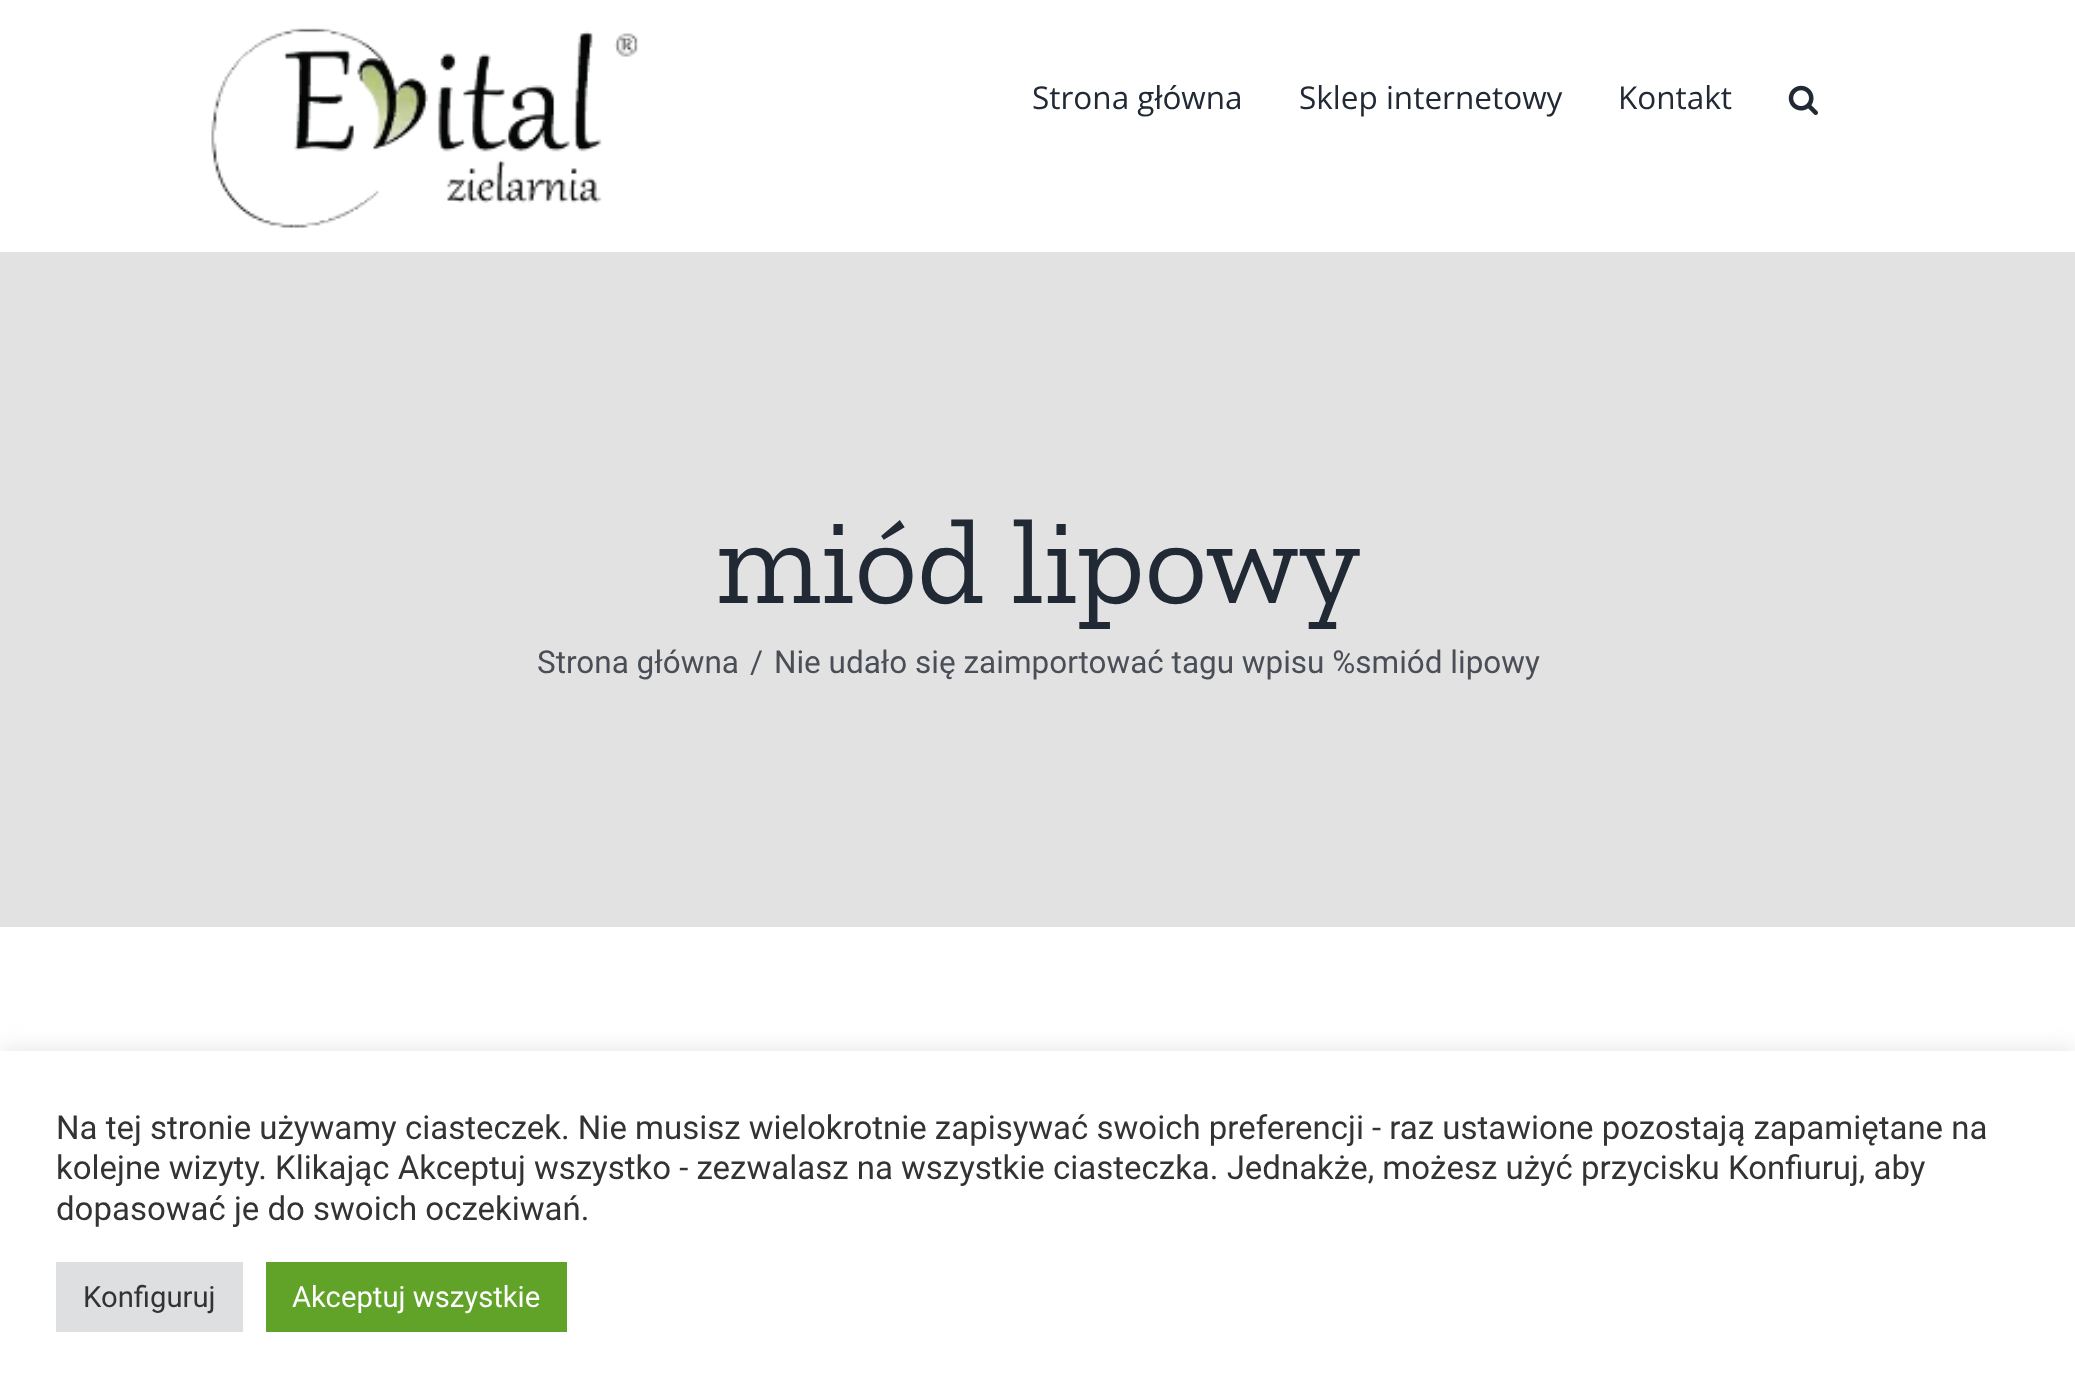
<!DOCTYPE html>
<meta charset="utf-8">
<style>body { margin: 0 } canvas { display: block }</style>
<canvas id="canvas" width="2075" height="1398"></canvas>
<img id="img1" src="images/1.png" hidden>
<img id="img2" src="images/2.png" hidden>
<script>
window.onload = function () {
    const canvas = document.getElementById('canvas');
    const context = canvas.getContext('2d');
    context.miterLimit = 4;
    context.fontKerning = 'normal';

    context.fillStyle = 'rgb(226, 226, 226)';
    context.fillRect(0, 0, 2075, 1398);
    context.fillStyle = 'rgb(255, 255, 255)';
    context.fillRect(0, 0, 2075, 252);
    context.drawImage(document.getElementById('img1'), 211, 28, 427, 200);
    context.drawImage(document.getElementById('img2'), 1788, 85, 30, 30);
    context.fillRect(0, 927, 2075, 124);
    context.fillStyle = 'rgba(172, 171, 171, 0.3)';
    context.filter = 'blur(11px)';
    context.beginPath();
    context.rect(0, 1049, 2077, 348);
    context.fill();
    context.filter = 'none';
    context.fillStyle = 'rgb(255, 255, 255)';
    context.fillRect(0, 1051, 2075, 347);
    context.fillStyle = 'rgb(222, 223, 224)';
    context.fillRect(56, 1262, 187, 70);
    context.fillStyle = 'rgb(97, 162, 41)';
    context.fillRect(266, 1262, 301, 70);
    context.font = '31.5px Open Sans';
    context.fillStyle = 'rgb(33, 41, 52)';
    context.fillText('Strona główna', 1032, 109);
    context.fillText('Sklep internetowy', 1299, 109);
    context.fillText('Kontakt', 1618, 109);
    context.font = '121.5px Zilla Slab';
    context.fillText('miód lipowy', 716, 603);
    context.font = '31.5px Roboto';
    context.fillStyle = 'rgb(74, 78, 87)';
    context.fillText('Strona główna', 537, 673);
    context.fillText('/', 750, 673);
    context.fillText('Nie udało się zaimportować tagu wpisu %smiód lipowy', 774, 673);
    context.font = '33px Roboto';
    context.fillStyle = 'rgb(51, 51, 51)';
    context.fillText('Na tej stronie używamy ciasteczek. Nie musisz wielokrotnie zapisywać swoich preferencji - raz ustawione pozostają zapamiętane na', 56, 1139);
    context.fillText('kolejne wizyty. Klikając Akceptuj wszystko - zezwalasz na wszystkie ciasteczka. Jednakże, możesz użyć przycisku Konfiuruj, aby', 56, 1179);
    context.fillText('dopasować je do swoich oczekiwań.', 56, 1220);
    context.font = '29.25px Roboto';
    context.fillText('Konfiguruj', 83, 1307);
    context.fillStyle = 'rgb(255, 255, 255)';
    context.fillText('Akceptuj wszystkie', 292, 1307);
};
</script>
